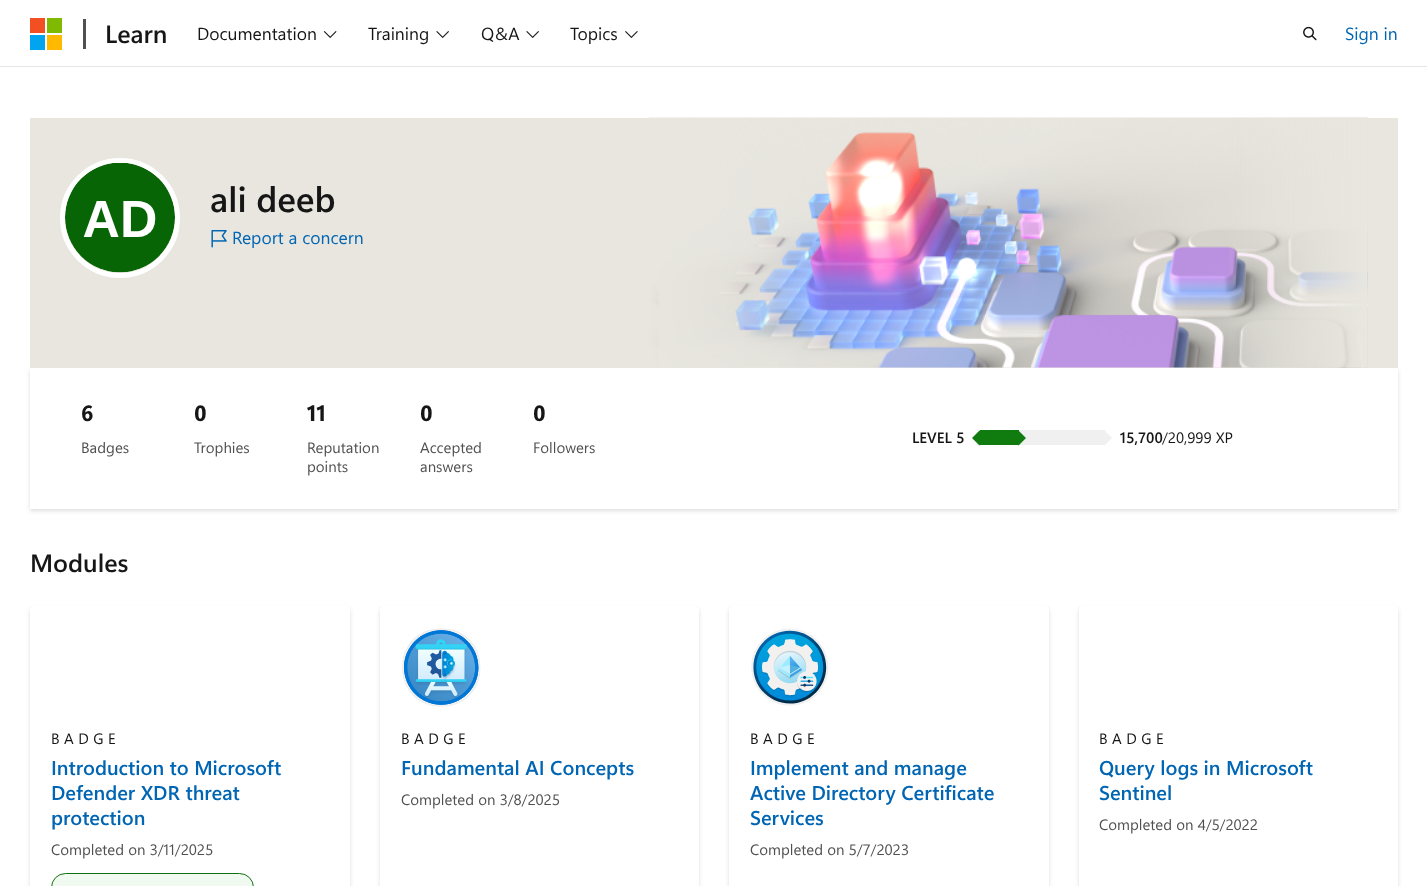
<!DOCTYPE html>
<meta charset="utf-8">
<style>body { margin: 0 } canvas { display: block }</style>
<canvas id="canvas" width="1427" height="886"></canvas>
<img id="img1" src="images/1.png" hidden>
<img id="img2" src="images/2.png" hidden>
<img id="img3" src="images/3.png" hidden>
<img id="img4" src="images/4.png" hidden>
<img id="img5" src="images/5.png" hidden>
<img id="img6" src="images/6.png" hidden>
<img id="img7" src="images/7.png" hidden>
<img id="img8" src="images/8.png" hidden>
<img id="img9" src="images/9.png" hidden>
<img id="img10" src="images/10.png" hidden>
<script>
window.onload = function () {
    const canvas = document.getElementById('canvas');
    const context = canvas.getContext('2d');
    context.miterLimit = 4;
    context.fontKerning = 'normal';

    context.fillStyle = 'rgb(255, 255, 255)';
    context.fillRect(0, 0, 1427, 886);
    context.fillStyle = 'rgb(230, 230, 230)';
    context.fillRect(0, 66, 1427, 1);
    context.fillStyle = 'rgb(242, 80, 34)';
    context.fillRect(30, 18, 15, 15);
    context.fillStyle = 'rgb(127, 186, 0)';
    context.fillRect(47, 18, 15, 15);
    context.fillStyle = 'rgb(0, 164, 239)';
    context.fillRect(30, 35, 15, 15);
    context.fillStyle = 'rgb(255, 185, 0)';
    context.fillRect(47, 35, 15, 15);
    context.fillStyle = 'rgb(80, 80, 80)';
    context.fillRect(83, 19, 3, 30);
    context.drawImage(document.getElementById('img1'), 323, 31, 14, 7);
    context.drawImage(document.getElementById('img2'), 436, 31, 13, 7);
    context.drawImage(document.getElementById('img2'), 526, 31, 13, 7);
    context.drawImage(document.getElementById('img3'), 625, 31, 13, 7);
    context.drawImage(document.getElementById('img4'), 1303, 26, 14, 15);
    context.fillStyle = 'rgba(0, 0, 0, 0.13)';
    context.filter = 'blur(2px)';
    context.beginPath();
    context.rect(30, 370, 1368, 141);
    context.fill();
    context.filter = 'none';
    context.fillStyle = 'rgb(232, 230, 223)';
    context.fillRect(30, 118, 1368, 250);
    context.beginPath();
    context.arc(120, 218, 57.5, 0, 2 * Math.PI);
    context.strokeStyle = 'rgb(255, 255, 255)';
    context.lineWidth = 5;
    context.stroke();
    context.drawImage(document.getElementById('img5'), 65, 163, 110, 110);
    context.drawImage(document.getElementById('img6'), 211, 230, 16, 18);
    context.drawImage(document.getElementById('img7'), 648, 117, 720, 251);
    context.drawImage(document.getElementById('img8'), 1229, 117, 139, 251);
    context.fillStyle = 'rgb(255, 255, 255)';
    context.fillRect(30, 368, 1368, 141);
    context.fillStyle = 'rgb(240, 240, 240)';
    context.fillRect(1019, 430, 86, 15);
    context.fillStyle = 'rgb(16, 124, 16)';
    context.fillRect(980, 430, 39, 15);
    context.beginPath();
    context.moveTo(979.5, 430.5);
    context.lineTo(987, 438);
    context.lineTo(979.5, 445.5);
    context.lineTo(972, 438);
    context.closePath();
    context.moveTo(1018.5, 430.5);
    context.lineTo(1026, 438);
    context.lineTo(1018.5, 445.5);
    context.lineTo(1011, 438);
    context.closePath();
    context.fill();
    context.fillStyle = 'rgb(240, 240, 240)';
    context.beginPath();
    context.moveTo(1104.5, 430.5);
    context.lineTo(1112, 438);
    context.lineTo(1104.5, 445.5);
    context.lineTo(1097, 438);
    context.closePath();
    context.fill();
    context.fillStyle = 'rgba(0, 0, 0, 0.11)';
    context.filter = 'blur(0.5px)';
    context.beginPath();
    context.roundRect(30, 606, 320, 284, 2.5);
    context.fill();
    context.filter = 'none';
    context.fillStyle = 'rgba(0, 0, 0, 0.13)';
    context.filter = 'blur(2px)';
    context.beginPath();
    context.roundRect(30, 609, 320, 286, 2.5);
    context.fill();
    context.filter = 'none';
    context.fillStyle = 'rgb(255, 255, 255)';
    context.beginPath();
    context.roundRect(30, 606, 320, 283, 2.5);
    context.fill();
    context.fillStyle = 'rgb(241, 250, 241)';
    context.beginPath();
    context.roundRect(51.5, 873.5, 202, 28, 14.5);
    context.fill();
    context.strokeStyle = 'rgb(14, 112, 14)';
    context.lineWidth = 1;
    context.stroke();
    context.fillStyle = 'rgba(0, 0, 0, 0.11)';
    context.filter = 'blur(0.5px)';
    context.beginPath();
    context.roundRect(380, 606, 319, 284, 2.5);
    context.fill();
    context.filter = 'none';
    context.fillStyle = 'rgba(0, 0, 0, 0.13)';
    context.filter = 'blur(2px)';
    context.beginPath();
    context.roundRect(380, 609, 319, 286, 2.5);
    context.fill();
    context.filter = 'none';
    context.fillStyle = 'rgb(255, 255, 255)';
    context.beginPath();
    context.roundRect(380, 606, 319, 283, 2.5);
    context.fill();
    context.drawImage(document.getElementById('img9'), 402, 628, 79, 79);
    context.fillStyle = 'rgba(0, 0, 0, 0.11)';
    context.filter = 'blur(0.5px)';
    context.beginPath();
    context.roundRect(729, 606, 320, 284, 2.5);
    context.fill();
    context.filter = 'none';
    context.fillStyle = 'rgba(0, 0, 0, 0.13)';
    context.filter = 'blur(2px)';
    context.beginPath();
    context.roundRect(729, 609, 320, 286, 2.5);
    context.fill();
    context.filter = 'none';
    context.fillStyle = 'rgb(255, 255, 255)';
    context.beginPath();
    context.roundRect(729, 606, 320, 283, 2.5);
    context.fill();
    context.drawImage(document.getElementById('img10'), 751, 628, 78, 78);
    context.fillStyle = 'rgba(0, 0, 0, 0.11)';
    context.filter = 'blur(0.5px)';
    context.beginPath();
    context.roundRect(1079, 606, 319, 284, 2.5);
    context.fill();
    context.filter = 'none';
    context.fillStyle = 'rgba(0, 0, 0, 0.13)';
    context.filter = 'blur(2px)';
    context.beginPath();
    context.roundRect(1079, 609, 319, 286, 2.5);
    context.fill();
    context.filter = 'none';
    context.fillStyle = 'rgb(255, 255, 255)';
    context.beginPath();
    context.roundRect(1079, 606, 319, 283, 2.5);
    context.fill();
    context.font = '600 25px Segoe UI';
    context.fillStyle = 'rgb(22, 22, 22)';
    context.fillText('Learn', 105, 43);
    context.font = '17.5px Segoe UI';
    context.fillText('Documentation', 197, 40);
    context.fillText('Training', 368, 40);
    context.fillText('Q&A', 481, 40);
    context.fillText('Topics', 570, 40);
    context.fillStyle = 'rgb(0, 101, 179)';
    context.fillText('Sign in', 1345, 40);
    context.font = '600 35px Segoe UI';
    context.fillStyle = 'rgb(22, 22, 22)';
    context.fillText('ali deeb', 210, 212);
    context.font = '17.5px Segoe UI';
    context.fillStyle = 'rgb(0, 101, 179)';
    context.fillText('Report a concern', 232, 244);
    context.font = 'bold 22px Segoe UI';
    context.fillStyle = 'rgb(22, 22, 22)';
    context.fillText('6', 81, 421);
    context.font = '15px Segoe UI';
    context.fillStyle = 'rgb(80, 80, 80)';
    context.fillText('Badges', 81, 453);
    context.font = 'bold 22px Segoe UI';
    context.fillStyle = 'rgb(22, 22, 22)';
    context.fillText('0', 194, 421);
    context.font = '15px Segoe UI';
    context.fillStyle = 'rgb(80, 80, 80)';
    context.fillText('Trophies', 194, 453);
    context.font = 'bold 22px Segoe UI';
    context.fillStyle = 'rgb(22, 22, 22)';
    context.fillText('11', 307, 421);
    context.font = '15px Segoe UI';
    context.fillStyle = 'rgb(80, 80, 80)';
    context.fillText('Reputation', 307, 453);
    context.fillText('points', 307, 472);
    context.font = 'bold 22px Segoe UI';
    context.fillStyle = 'rgb(22, 22, 22)';
    context.fillText('0', 420, 421);
    context.font = '15px Segoe UI';
    context.fillStyle = 'rgb(80, 80, 80)';
    context.fillText('Accepted', 420, 453);
    context.fillText('answers', 420, 472);
    context.font = 'bold 22px Segoe UI';
    context.fillStyle = 'rgb(22, 22, 22)';
    context.fillText('0', 533, 421);
    context.font = '15px Segoe UI';
    context.fillStyle = 'rgb(80, 80, 80)';
    context.fillText('Followers', 533, 453);
    context.font = '600 15px Segoe UI';
    context.fillStyle = 'rgb(22, 22, 22)';
    context.fillText('LEVEL 5', 912, 443);
    context.fillText('15,700', 1120, 443);
    context.font = '15px Segoe UI';
    context.fillText('/20,999 XP', 1162, 443);
    context.font = '600 25px Segoe UI';
    context.fillText('Modules', 30, 572);
    context.letterSpacing = '4.5px';
    context.font = '15px Segoe UI';
    context.fillText('BADGE', 51, 744);
    context.letterSpacing = '0px';
    context.font = '600 20px Segoe UI';
    context.fillStyle = 'rgb(0, 101, 179)';
    context.fillText('Introduction to Microsoft', 51, 775);
    context.fillText('Defender XDR threat', 51, 800);
    context.fillText('protection', 51, 825);
    context.font = '15px Segoe UI';
    context.fillStyle = 'rgb(80, 80, 80)';
    context.fillText('Completed on 3/11/2025', 51, 855);
    context.letterSpacing = '4.5px';
    context.fillStyle = 'rgb(22, 22, 22)';
    context.fillText('BADGE', 401, 744);
    context.letterSpacing = '0px';
    context.font = '600 20px Segoe UI';
    context.fillStyle = 'rgb(0, 101, 179)';
    context.fillText('Fundamental AI Concepts', 401, 775);
    context.font = '15px Segoe UI';
    context.fillStyle = 'rgb(80, 80, 80)';
    context.fillText('Completed on 3/8/2025', 401, 805);
    context.letterSpacing = '4.5px';
    context.fillStyle = 'rgb(22, 22, 22)';
    context.fillText('BADGE', 750, 744);
    context.letterSpacing = '0px';
    context.font = '600 20px Segoe UI';
    context.fillStyle = 'rgb(0, 101, 179)';
    context.fillText('Implement and manage', 750, 775);
    context.fillText('Active Directory Certificate', 750, 800);
    context.fillText('Services', 750, 825);
    context.font = '15px Segoe UI';
    context.fillStyle = 'rgb(80, 80, 80)';
    context.fillText('Completed on 5/7/2023', 750, 855);
    context.letterSpacing = '4.5px';
    context.fillStyle = 'rgb(22, 22, 22)';
    context.fillText('BADGE', 1099, 744);
    context.letterSpacing = '0px';
    context.font = '600 20px Segoe UI';
    context.fillStyle = 'rgb(0, 101, 179)';
    context.fillText('Query logs in Microsoft', 1099, 775);
    context.fillText('Sentinel', 1099, 800);
    context.font = '15px Segoe UI';
    context.fillStyle = 'rgb(80, 80, 80)';
    context.fillText('Completed on 4/5/2022', 1099, 830);
};
</script>
